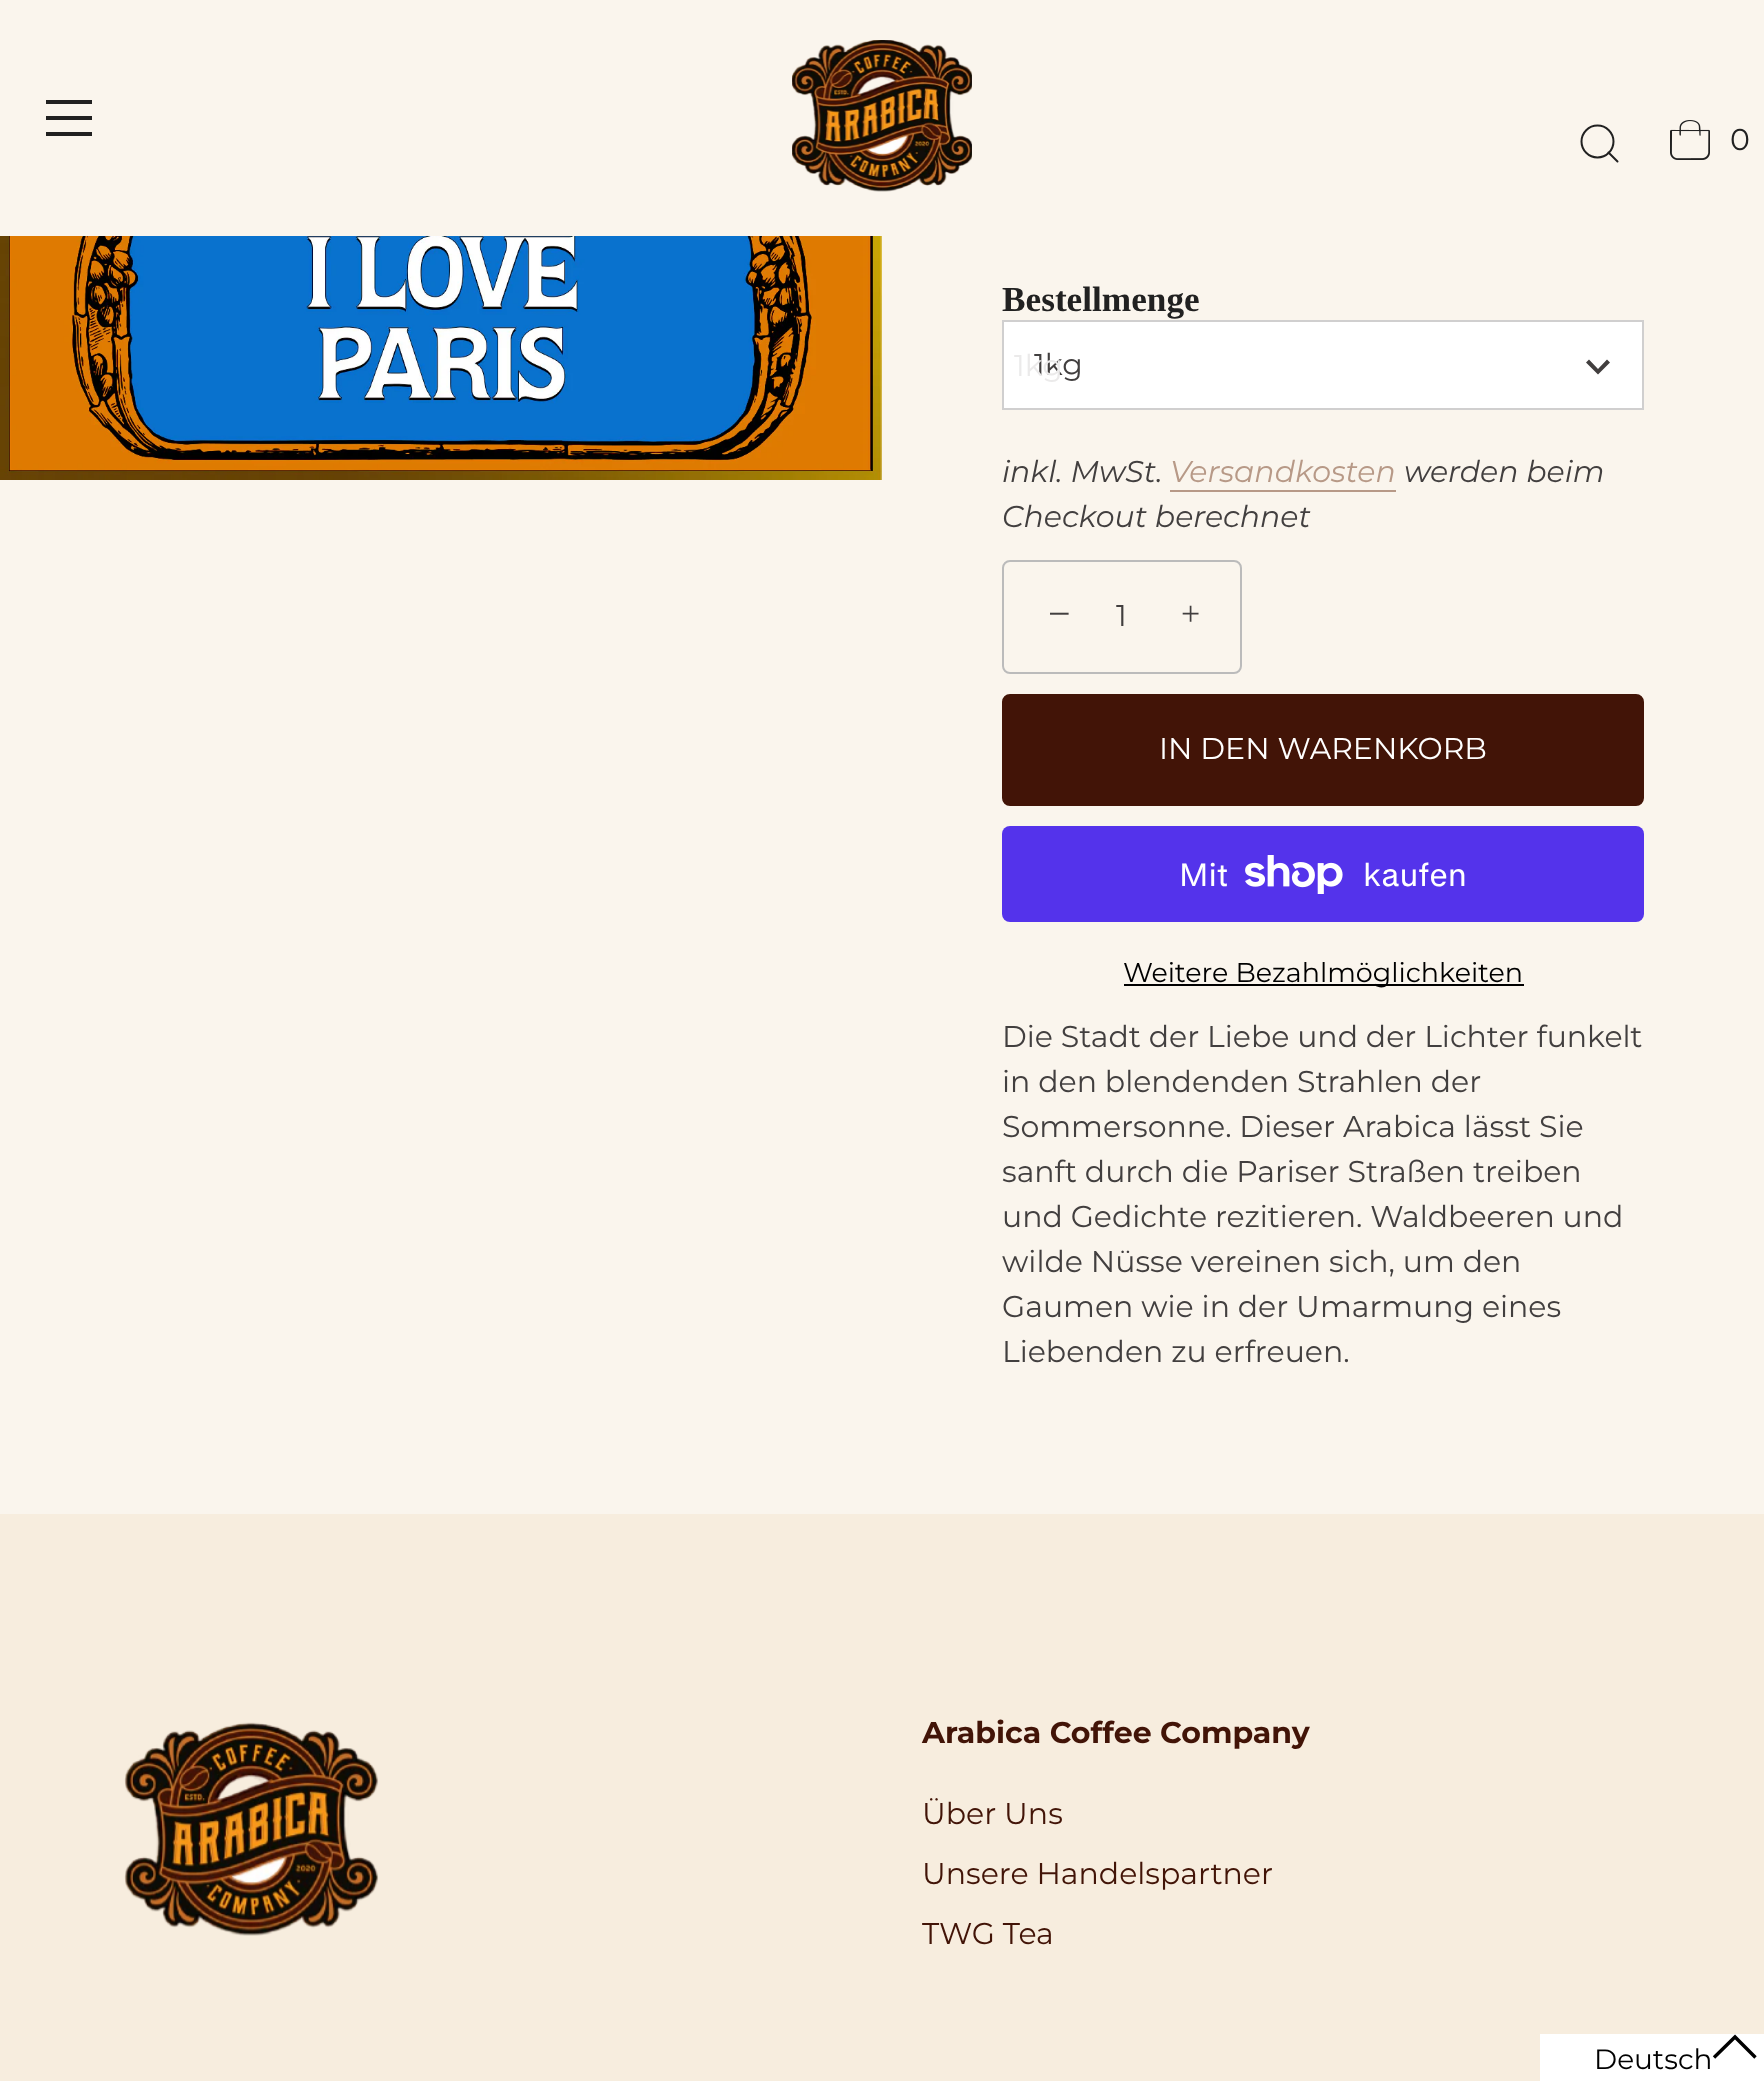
<!DOCTYPE html>
<meta charset="utf-8">
<style>body { margin: 0 } canvas { display: block }</style>
<canvas id="canvas" width="1764" height="2081"></canvas>
<img id="img1" src="images/1.png" hidden>
<img id="img2" src="images/2.png" hidden>
<img id="img3" src="images/3.png" hidden>
<img id="img4" src="images/4.png" hidden>
<img id="img5" src="images/5.png" hidden>
<script>
window.onload = function () {
    const canvas = document.getElementById('canvas');
    const context = canvas.getContext('2d');
    context.miterLimit = 4;
    context.fontKerning = 'normal';

    context.fillStyle = 'rgb(250, 245, 237)';
    context.fillRect(0, 0, 1764, 2081);
    context.fillStyle = 'rgb(33, 33, 33)';
    context.fillRect(46, 100, 46, 4);
    context.fillRect(46, 116, 46, 4);
    context.fillRect(46, 132, 46, 4);
    context.drawImage(document.getElementById('img1'), 792, 40, 180, 152);
    context.beginPath();
    context.arc(1597.5, 141.5, 16, 0, 2 * Math.PI);
    context.strokeStyle = 'rgb(33, 33, 33)';
    context.lineWidth = 2;
    context.stroke();
    context.beginPath();
    context.moveTo(1617.5, 161.5);
    context.lineTo(1608.5, 152.5);
    context.lineCap = 'round';
    context.lineJoin = 'round';
    context.stroke();
    context.drawImage(document.getElementById('img2'), 1670, 120, 40, 40);
    context.drawImage(document.getElementById('img3'), 0, 236, 882, 244);
    context.fillStyle = 'rgb(255, 255, 255)';
    context.beginPath();
    context.rect(1003, 321, 640, 88);
    context.fill();
    context.strokeStyle = 'rgb(208, 207, 207)';
    context.lineJoin = 'miter';
    context.stroke();
    context.fillStyle = 'rgb(66, 63, 63)';
    context.beginPath();
    context.moveTo(1589, 359.5);
    context.lineTo(1598, 369);
    context.lineTo(1607, 359.5);
    context.lineTo(1610, 362.5);
    context.lineTo(1598, 374.5);
    context.lineTo(1586, 362.5);
    context.closePath();
    context.fill();
    context.fillStyle = 'rgb(183, 153, 135)';
    context.fillRect(1170, 490, 226, 2);
    context.beginPath();
    context.roundRect(1003, 561, 238, 112, 7);
    context.strokeStyle = 'rgb(187, 187, 187)';
    context.stroke();
    context.fillStyle = 'rgb(66, 20, 7)';
    context.beginPath();
    context.roundRect(1003, 695, 640, 110, 7);
    context.fill();
    context.strokeStyle = 'rgb(66, 20, 7)';
    context.stroke();
    context.fillStyle = 'rgb(84, 51, 235)';
    context.beginPath();
    context.roundRect(1002, 826, 642, 96, 8);
    context.fill();
    context.drawImage(document.getElementById('img4'), 1245, 855, 98, 39);
    context.fillStyle = 'rgb(0, 0, 0)';
    context.fillRect(1124, 984, 400, 2);
    context.fillStyle = 'rgb(247, 237, 222)';
    context.fillRect(0, 1514, 1764, 567);
    context.drawImage(document.getElementById('img5'), 124, 1722, 255, 214);
    context.fillStyle = 'rgb(255, 255, 255)';
    context.fillRect(1540, 2034, 224, 47);
    context.beginPath();
    context.moveTo(1755.5, 2057.5);
    context.lineTo(1735, 2037);
    context.lineTo(1714, 2057.5);
    context.strokeStyle = 'rgb(0, 0, 0)';
    context.lineWidth = 3.4;
    context.lineCap = 'butt';
    context.stroke();
    context.font = '30px Montserrat';
    context.fillStyle = 'rgb(33, 33, 33)';
    context.fillText('0', 1730, 150);
    context.font = 'bold 35.25px Liberation Serif';
    context.fillText('Bestellmenge', 1002, 311);
    context.font = '30px Montserrat';
    context.fillStyle = 'rgb(66, 63, 63)';
    context.fillText('1kg', 1034, 375);
    context.fillStyle = 'rgb(235, 234, 234)';
    context.fillText('1kg', 1014, 376);
    context.font = 'italic 30px Montserrat';
    context.fillStyle = 'rgb(66, 63, 63)';
    context.fillText('inkl. MwSt.', 1002, 482);
    context.fillStyle = 'rgb(183, 153, 135)';
    context.fillText('Versandkosten', 1170, 482);
    context.fillStyle = 'rgb(66, 63, 63)';
    context.fillText('werden beim', 1404, 482);
    context.fillText('Checkout berechnet', 1002, 527);
    context.font = '40px Liberation Serif';
    context.fillText('−', 1048, 627);
    context.letterSpacing = '2px';
    context.font = '30px Montserrat';
    context.fillText('1', 1116, 626);
    context.letterSpacing = '0px';
    context.font = '34px Liberation Serif';
    context.fillText('+', 1181, 625);
    context.font = '30px Montserrat';
    context.fillStyle = 'rgb(255, 255, 255)';
    context.fillText('IN DEN WARENKORB', 1159, 759);
    context.font = '32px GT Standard';
    context.fillText('Mit', 1179, 886);
    context.fillText('kaufen', 1363, 886);
    context.font = '27px Montserrat';
    context.fillStyle = 'rgb(0, 0, 0)';
    context.fillText('Weitere Bezahlmöglichkeiten', 1123, 982);
    context.font = '30px Montserrat';
    context.fillStyle = 'rgb(66, 63, 63)';
    context.fillText('Die Stadt der Liebe und der Lichter funkelt', 1002, 1047);
    context.fillText('in den blendenden Strahlen der', 1002, 1092);
    context.fillText('Sommersonne. Dieser Arabica lässt Sie', 1002, 1137);
    context.fillText('sanft durch die Pariser Straßen treiben', 1002, 1182);
    context.fillText('und Gedichte rezitieren. Waldbeeren und', 1002, 1227);
    context.fillText('wilde Nüsse vereinen sich, um den', 1002, 1272);
    context.fillText('Gaumen wie in der Umarmung eines', 1002, 1317);
    context.fillText('Liebenden zu erfreuen.', 1002, 1362);
    context.font = 'bold 30px Montserrat';
    context.fillStyle = 'rgb(66, 20, 7)';
    context.fillText('Arabica Coffee Company', 922, 1743);
    context.font = '30px Montserrat';
    context.fillText('Über Uns', 922, 1824);
    context.fillText('Unsere Handelspartner', 922, 1884);
    context.fillText('TWG Tea', 922, 1944);
    context.font = '28px Montserrat';
    context.fillStyle = 'rgb(0, 0, 0)';
    context.fillText('Deutsch', 1594, 2069);
};
</script>
